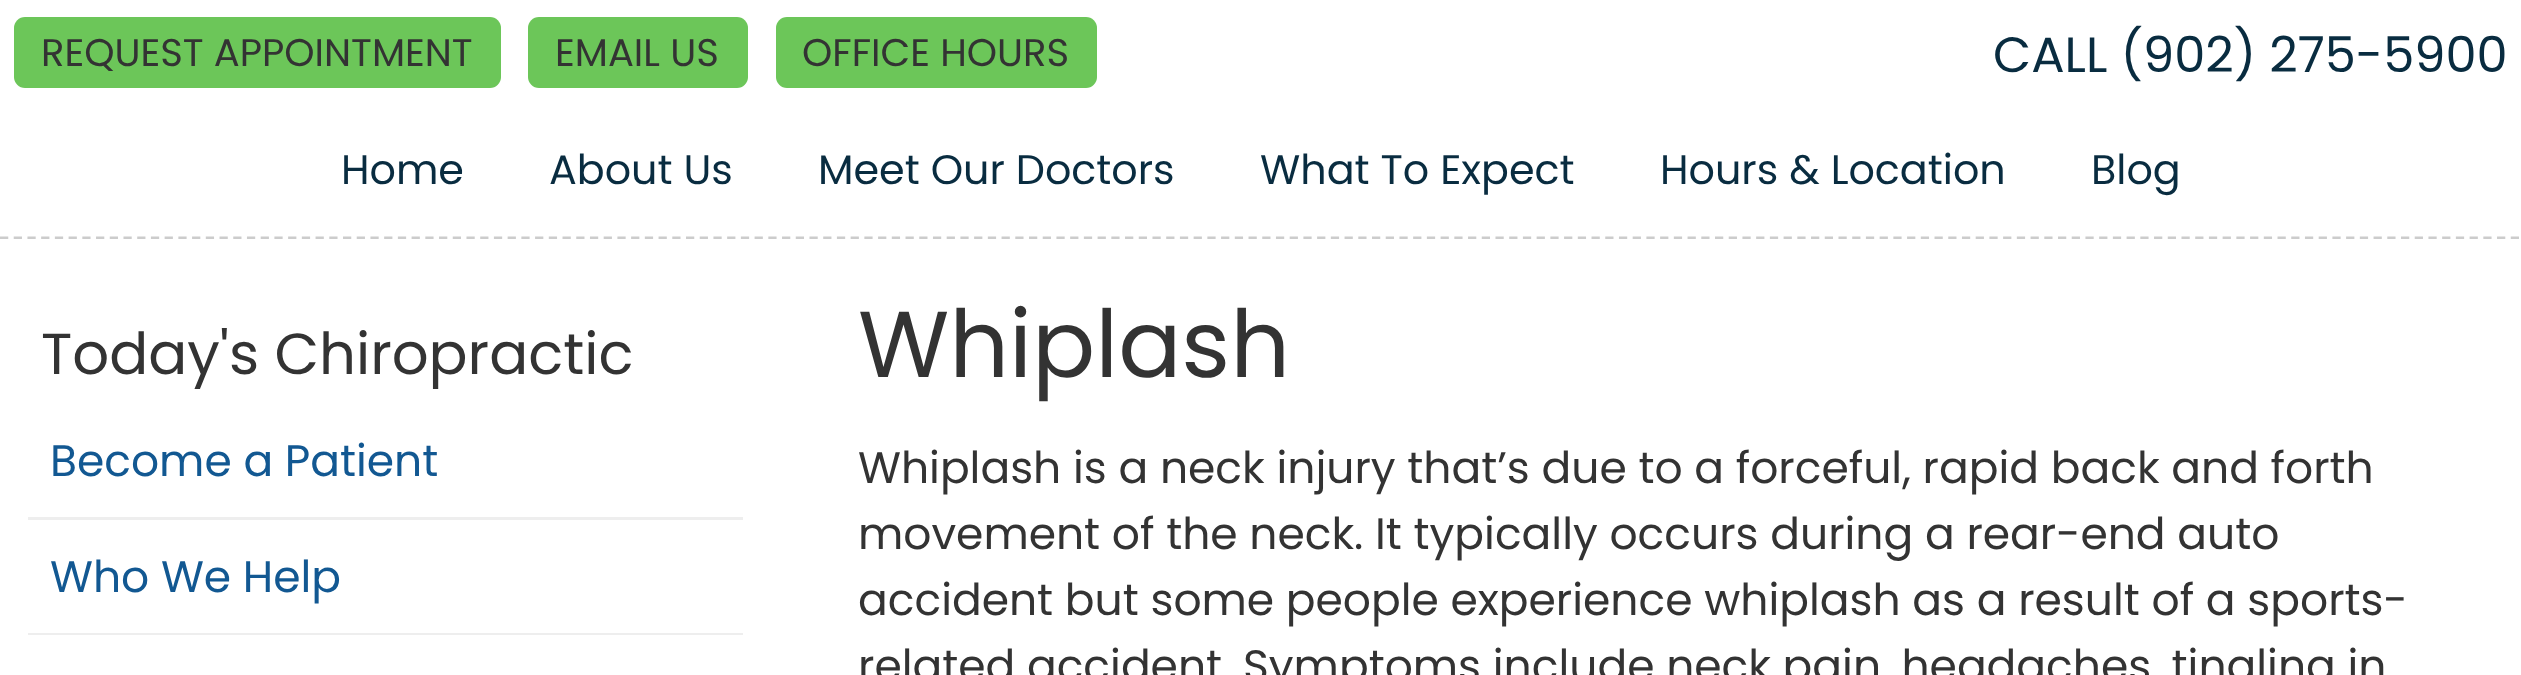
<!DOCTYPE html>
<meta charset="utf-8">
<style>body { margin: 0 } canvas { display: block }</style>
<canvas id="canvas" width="2521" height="675"></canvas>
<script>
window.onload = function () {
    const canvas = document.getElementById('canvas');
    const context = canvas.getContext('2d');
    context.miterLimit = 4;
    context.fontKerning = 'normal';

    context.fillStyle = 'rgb(255, 255, 255)';
    context.fillRect(0, 0, 2521, 675);
    context.fillStyle = 'rgb(108, 198, 89)';
    context.beginPath();
    context.roundRect(14, 17, 487, 71, 11);
    context.fill();
    context.beginPath();
    context.roundRect(528, 17, 220, 71, 11);
    context.fill();
    context.beginPath();
    context.roundRect(776, 17, 321, 71, 11);
    context.fill();
    context.beginPath();
    context.moveTo(0, 238);
    context.lineTo(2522, 238);
    context.strokeStyle = 'rgb(204, 204, 204)';
    context.lineWidth = 2.8;
    context.setLineDash([8.25, 5.47]);
    context.stroke();
    context.fillStyle = 'rgb(238, 238, 238)';
    context.fillRect(28, 517, 715, 3);
    context.fillRect(28, 633, 715, 2);
    context.fillStyle = 'rgb(255, 255, 255)';
    context.fillRect(0, 239, 2519, 1);
    context.font = '38.5px Poppins';
    context.fillStyle = 'rgb(51, 51, 51)';
    context.fillText('REQUEST APPOINTMENT', 41, 66);
    context.fillText('EMAIL US', 555, 66);
    context.fillText('OFFICE HOURS', 802, 66);
    context.font = '49.5px Poppins';
    context.fillStyle = 'rgb(9, 44, 64)';
    context.fillText('CALL (902) 275-5900', 1993, 72);
    context.font = '41.25px Poppins';
    context.fillText('Home', 341, 184);
    context.fillText('About Us', 549, 184);
    context.fillText('Meet Our Doctors', 818, 184);
    context.fillText('What To Expect', 1260, 184);
    context.fillText('Hours & Location', 1660, 184);
    context.fillText('Blog', 2091, 184);
    context.font = '57.75px Poppins';
    context.fillStyle = 'rgb(51, 51, 51)';
    context.fillText('Today\'s Chiropractic', 41, 374);
    context.font = '44px Poppins';
    context.fillStyle = 'rgb(18, 88, 146)';
    context.fillText('Become a Patient', 50, 476);
    context.fillText('Who We Help', 50, 592);
    context.font = '93.5px Poppins';
    context.fillStyle = 'rgb(51, 51, 51)';
    context.fillText('Whiplash', 858, 377);
    context.font = '44px Poppins';
    context.fillText('Whiplash is a neck injury that’s due to a forceful, rapid back and forth', 858, 483);
    context.fillText('movement of the neck. It typically occurs during a rear-end auto', 858, 549);
    context.fillText('accident but some people experience whiplash as a result of a sports-', 858, 615);
    context.fillText('related accident. Symptoms include neck pain, headaches, tingling in', 858, 681);
};
</script>
